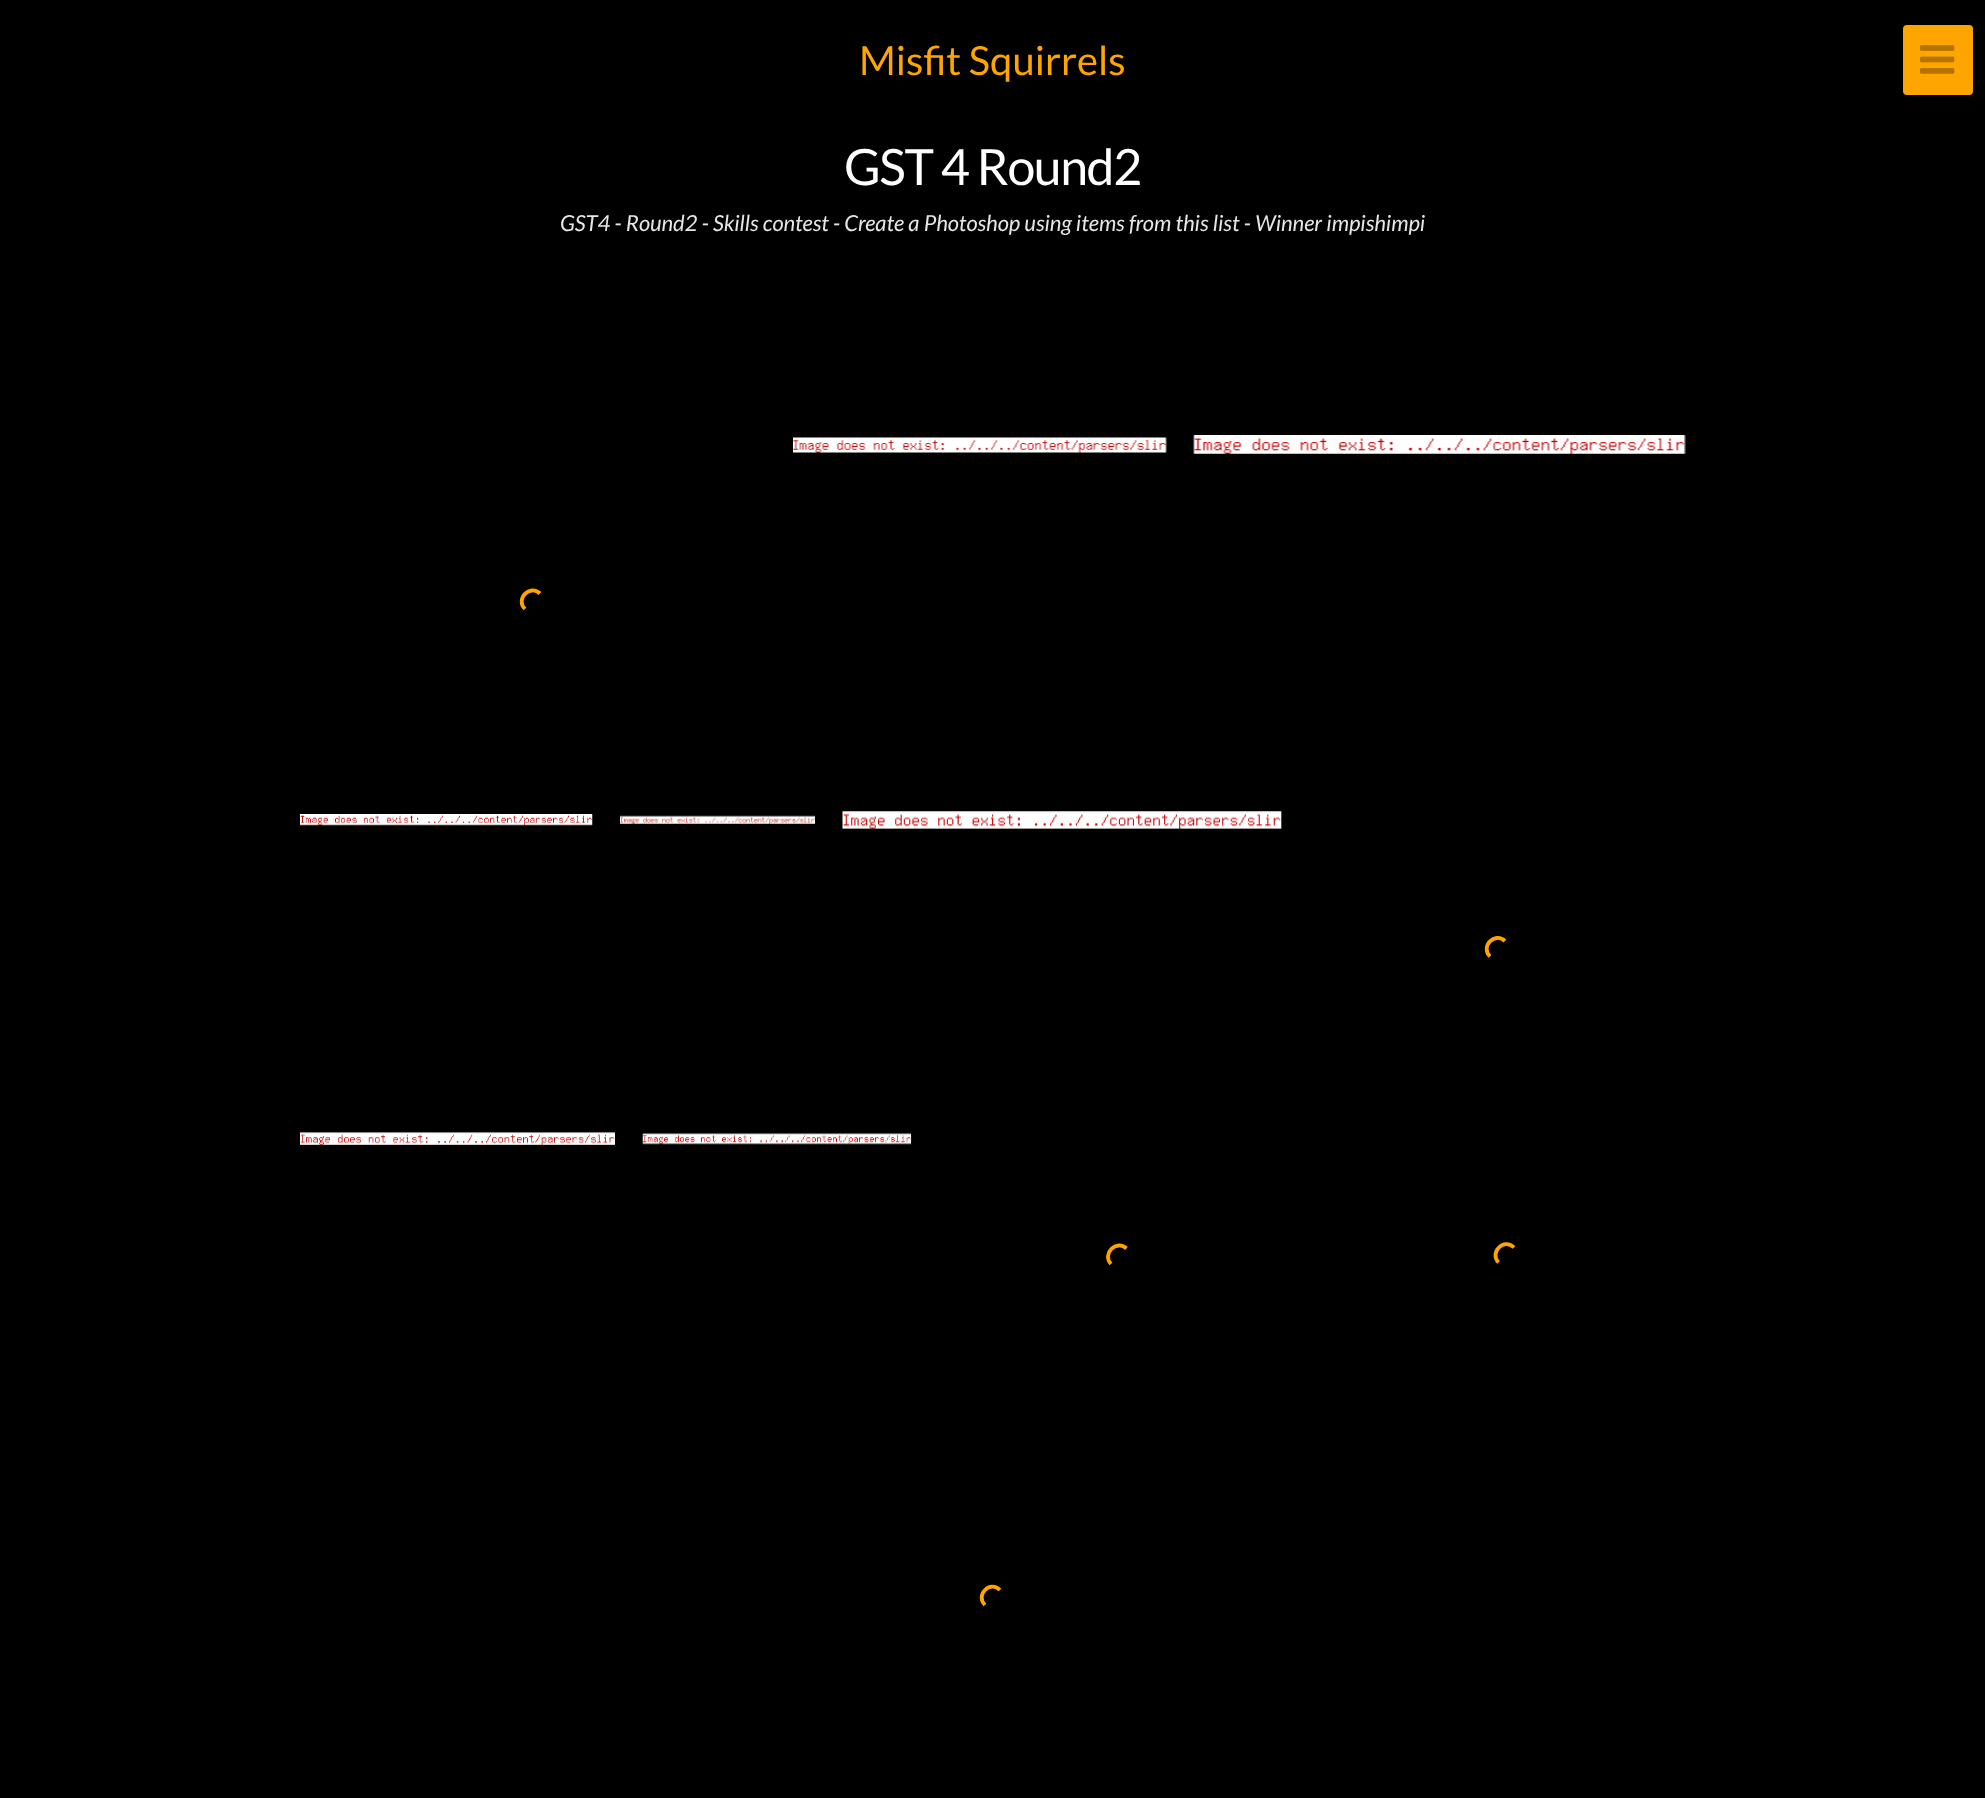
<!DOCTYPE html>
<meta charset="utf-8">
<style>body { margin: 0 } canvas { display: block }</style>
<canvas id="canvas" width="1985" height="1798"></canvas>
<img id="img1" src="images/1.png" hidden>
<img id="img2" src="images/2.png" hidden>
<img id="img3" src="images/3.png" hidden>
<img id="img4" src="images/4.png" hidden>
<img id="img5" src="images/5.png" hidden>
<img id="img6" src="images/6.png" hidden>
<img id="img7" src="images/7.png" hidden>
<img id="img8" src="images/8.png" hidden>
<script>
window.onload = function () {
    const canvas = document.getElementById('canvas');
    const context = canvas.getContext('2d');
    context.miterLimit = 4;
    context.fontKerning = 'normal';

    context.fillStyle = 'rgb(0, 0, 0)';
    context.fillRect(0, 0, 1985, 1798);
    context.drawImage(document.getElementById('img1'), 793, 437, 374, 16);
    context.drawImage(document.getElementById('img2'), 1193, 435, 493, 19);
    context.beginPath();
    context.moveTo(525, 609);
    context.bezierCurveTo(515, 599, 530, 584, 540, 593.5);
    context.strokeStyle = 'rgb(255, 165, 0)';
    context.lineWidth = 3.8;
    context.stroke();
    context.drawImage(document.getElementById('img3'), 300, 814, 293, 12);
    context.drawImage(document.getElementById('img4'), 620, 815, 195, 9);
    context.drawImage(document.getElementById('img5'), 842, 811, 440, 18);
    context.beginPath();
    context.moveTo(1490, 956.5);
    context.bezierCurveTo(1480, 946.5, 1495, 931.5, 1505, 941);
    context.stroke();
    context.drawImage(document.getElementById('img6'), 300, 1132, 315, 13);
    context.drawImage(document.getElementById('img7'), 642, 1133, 270, 12);
    context.beginPath();
    context.moveTo(1111, 1264);
    context.bezierCurveTo(1101.5, 1254, 1116.5, 1239, 1126.5, 1248.5);
    context.stroke();
    context.beginPath();
    context.moveTo(1498.5, 1262.5);
    context.bezierCurveTo(1489, 1252.5, 1504, 1237.5, 1514, 1247.5);
    context.stroke();
    context.beginPath();
    context.moveTo(985, 1605);
    context.bezierCurveTo(975, 1595, 990, 1580, 1000, 1590);
    context.stroke();
    context.fillStyle = 'rgb(255, 165, 0)';
    context.beginPath();
    context.roundRect(1903, 25, 70, 70, 4);
    context.fill();
    context.drawImage(document.getElementById('img8'), 1920, 45, 35, 29);
    context.font = '40px Lato';
    context.fillText('Misfit Squirrels', 859, 75);
    context.letterSpacing = '-1.4px';
    context.font = '50px Lato';
    context.fillStyle = 'rgb(255, 255, 255)';
    context.fillText('GST 4 Round2', 844, 185);
    context.letterSpacing = '0px';
    context.font = 'italic 22px Lato';
    context.fillStyle = 'rgb(230, 230, 230)';
    context.fillText('GST4 - Round2 - Skills contest - Create a Photoshop using items from this list - Winner impishimpi', 560, 231);
};
</script>
